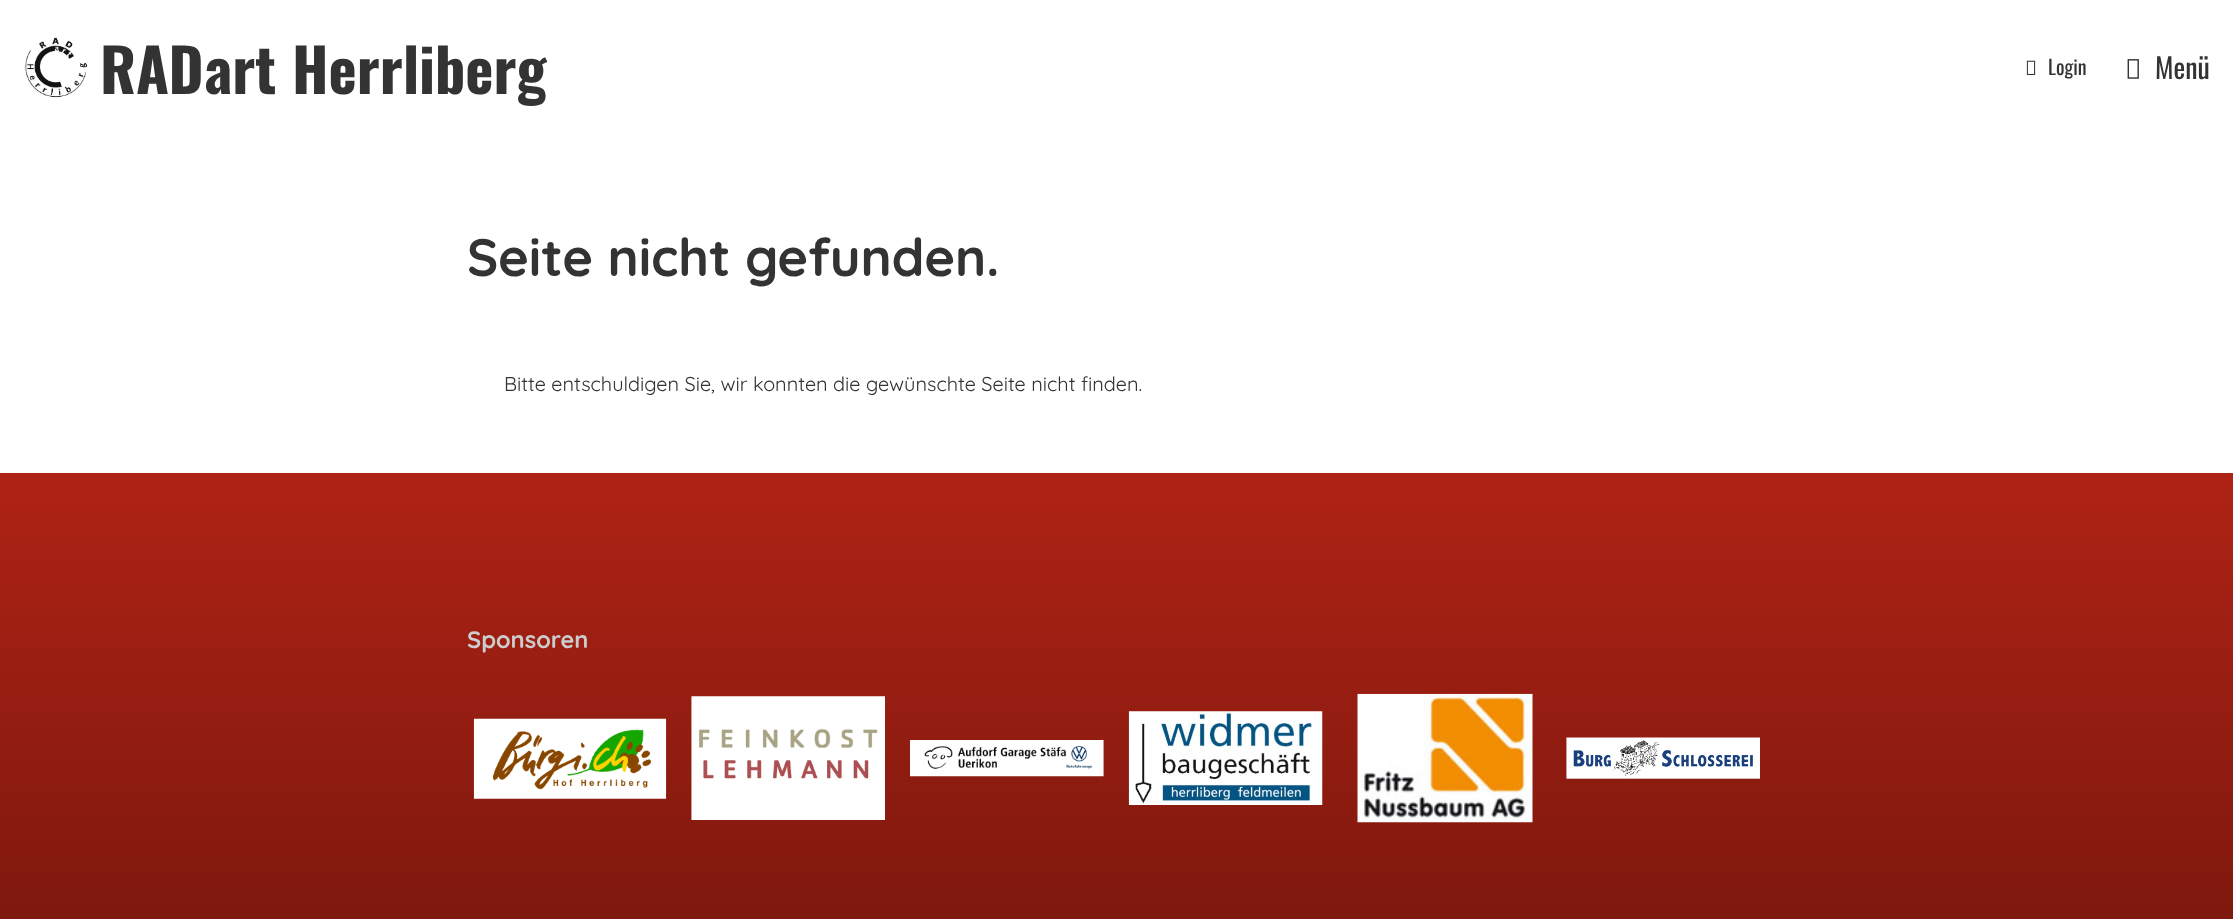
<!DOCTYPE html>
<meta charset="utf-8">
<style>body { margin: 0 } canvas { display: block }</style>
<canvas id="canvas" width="2233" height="919"></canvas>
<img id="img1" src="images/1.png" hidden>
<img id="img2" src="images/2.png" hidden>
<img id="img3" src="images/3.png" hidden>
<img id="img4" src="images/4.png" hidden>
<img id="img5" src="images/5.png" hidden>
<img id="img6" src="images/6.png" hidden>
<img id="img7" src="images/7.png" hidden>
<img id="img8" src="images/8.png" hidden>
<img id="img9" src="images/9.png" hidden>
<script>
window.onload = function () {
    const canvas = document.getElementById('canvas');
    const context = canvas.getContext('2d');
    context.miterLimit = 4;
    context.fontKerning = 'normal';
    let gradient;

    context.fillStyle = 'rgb(255, 255, 255)';
    context.fillRect(0, 0, 2233, 919);
    context.drawImage(document.getElementById('img1'), 25, 37, 63, 61);
    context.drawImage(document.getElementById('img2'), 2026, 60, 10, 15);
    context.drawImage(document.getElementById('img3'), 2127, 59, 12, 20);
    gradient = context.createLinearGradient(1117, 472, 1117, 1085);
    gradient.addColorStop(0, 'rgb(175, 35, 21)');
    gradient.addColorStop(1, 'rgb(109, 20, 11)');
    context.fillStyle = gradient;
    context.fillRect(0, 473, 2233, 446);
    context.drawImage(document.getElementById('img4'), 473, 718, 194, 81);
    context.drawImage(document.getElementById('img5'), 691, 696, 194, 124);
    context.drawImage(document.getElementById('img6'), 910, 740, 194, 37);
    context.drawImage(document.getElementById('img7'), 1128, 711, 195, 94);
    context.drawImage(document.getElementById('img8'), 1357, 693, 176, 130);
    context.drawImage(document.getElementById('img9'), 1566, 737, 194, 42);
    context.font = 'bold 60px Oswald';
    context.fillStyle = 'rgb(51, 51, 51)';
    context.fillText('RADart Herrliberg', 100, 94);
    context.font = '20px Oswald';
    context.fillText('Login', 2048, 75);
    context.font = '28px Oswald';
    context.fillText('Menü', 2155, 79);
    context.font = '300 52.5px Quicksand';
    context.fillText('Seite nicht gefunden.', 467, 276);
    context.font = '300 20px "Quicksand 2"';
    context.fillText('Bitte entschuldigen Sie, wir konnten die gewünschte Seite nicht finden.', 504, 391);
    context.font = '300 23.75px Quicksand';
    context.fillStyle = 'rgb(204, 204, 204)';
    context.fillText('Sponsoren', 467, 648);
};
</script>
